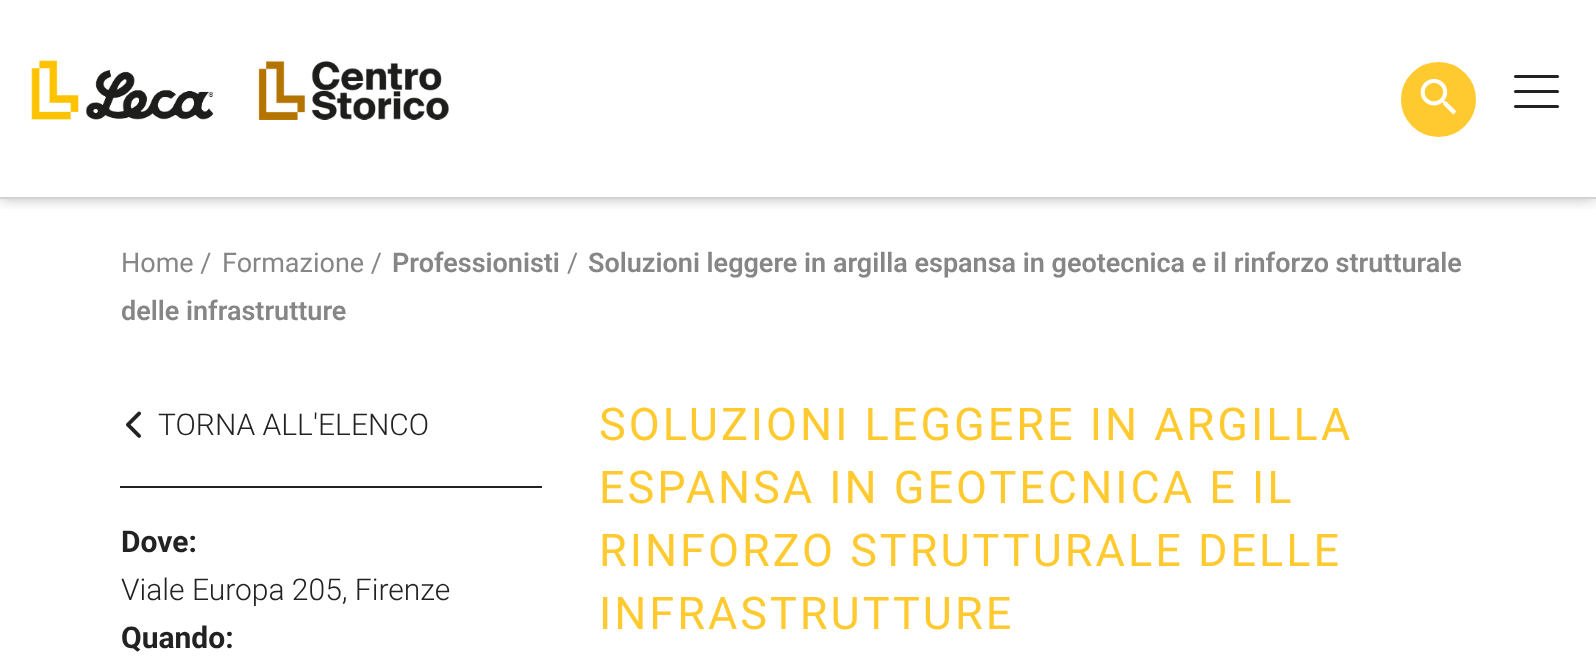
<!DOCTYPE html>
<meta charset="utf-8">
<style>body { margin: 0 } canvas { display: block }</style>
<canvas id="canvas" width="1596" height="659"></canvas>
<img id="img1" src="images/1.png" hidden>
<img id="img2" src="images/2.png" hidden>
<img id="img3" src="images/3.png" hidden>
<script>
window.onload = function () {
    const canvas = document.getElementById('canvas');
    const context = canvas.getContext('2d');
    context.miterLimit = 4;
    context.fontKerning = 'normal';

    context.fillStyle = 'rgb(255, 255, 255)';
    context.fillRect(0, 0, 1596, 659);
    context.save();
    context.beginPath();
    context.rect(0, 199, 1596, 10);
    context.clip();
    context.fillStyle = 'rgba(0, 0, 0, 0.3)';
    context.filter = 'blur(7.5px)';
    context.beginPath();
    context.rect(0, 0, 1596, 198);
    context.fill();
    context.filter = 'none';
    context.restore();
    context.fillStyle = 'rgb(211, 211, 211)';
    context.fillRect(0, 197, 1596, 2);
    context.drawImage(document.getElementById('img1'), 31, 60, 418, 60);
    context.fillStyle = 'rgb(255, 202, 48)';
    context.beginPath();
    context.arc(1438.5, 99.5, 36.5, 0, 2 * Math.PI);
    context.fill();
    context.strokeStyle = 'rgb(255, 202, 48)';
    context.lineWidth = 2;
    context.stroke();
    context.drawImage(document.getElementById('img2'), 1420, 78, 37, 37);
    context.fillStyle = 'rgb(34, 34, 34)';
    context.beginPath();
    context.roundRect(1514, 75, 45, 3, 1.5);
    context.fill();
    context.beginPath();
    context.roundRect(1514, 90, 45, 3, 1.5);
    context.fill();
    context.beginPath();
    context.roundRect(1514, 105, 45, 3, 1.5);
    context.fill();
    context.fillRect(120, 486, 422, 2);
    context.drawImage(document.getElementById('img3'), 126, 411, 15, 27);
    context.font = '27px Roboto';
    context.fillStyle = 'rgb(134, 134, 134)';
    context.fillText('Home /', 121, 272);
    context.fillText('Formazione /', 222, 272);
    context.font = '600 27px Roboto';
    context.fillText('Professionisti', 392, 272);
    context.font = '27px Roboto';
    context.fillText('/', 567, 272);
    context.font = '600 27px Roboto';
    context.fillText('Soluzioni leggere in argilla espansa in geotecnica e il rinforzo strutturale', 588, 272);
    context.fillText('delle infrastrutture', 121, 320);
    context.font = '300 30px Roboto';
    context.fillStyle = 'rgb(34, 34, 34)';
    context.fillText('TORNA ALL\'ELENCO', 158, 435);
    context.font = 'bold 30px Roboto';
    context.fillText('Dove:', 121, 552);
    context.font = '300 30px Roboto';
    context.fillText('Viale Europa 205, Firenze', 121, 600);
    context.font = 'bold 30px Roboto';
    context.fillText('Quando:', 121, 648);
    context.letterSpacing = '3px';
    context.font = '45px Roboto';
    context.fillStyle = 'rgb(255, 202, 48)';
    context.fillText('SOLUZIONI LEGGERE IN ARGILLA', 599, 440);
    context.fillText('ESPANSA IN GEOTECNICA E IL', 599, 503);
    context.fillText('RINFORZO STRUTTURALE DELLE', 599, 566);
    context.fillText('INFRASTRUTTURE', 599, 629);
};
</script>
